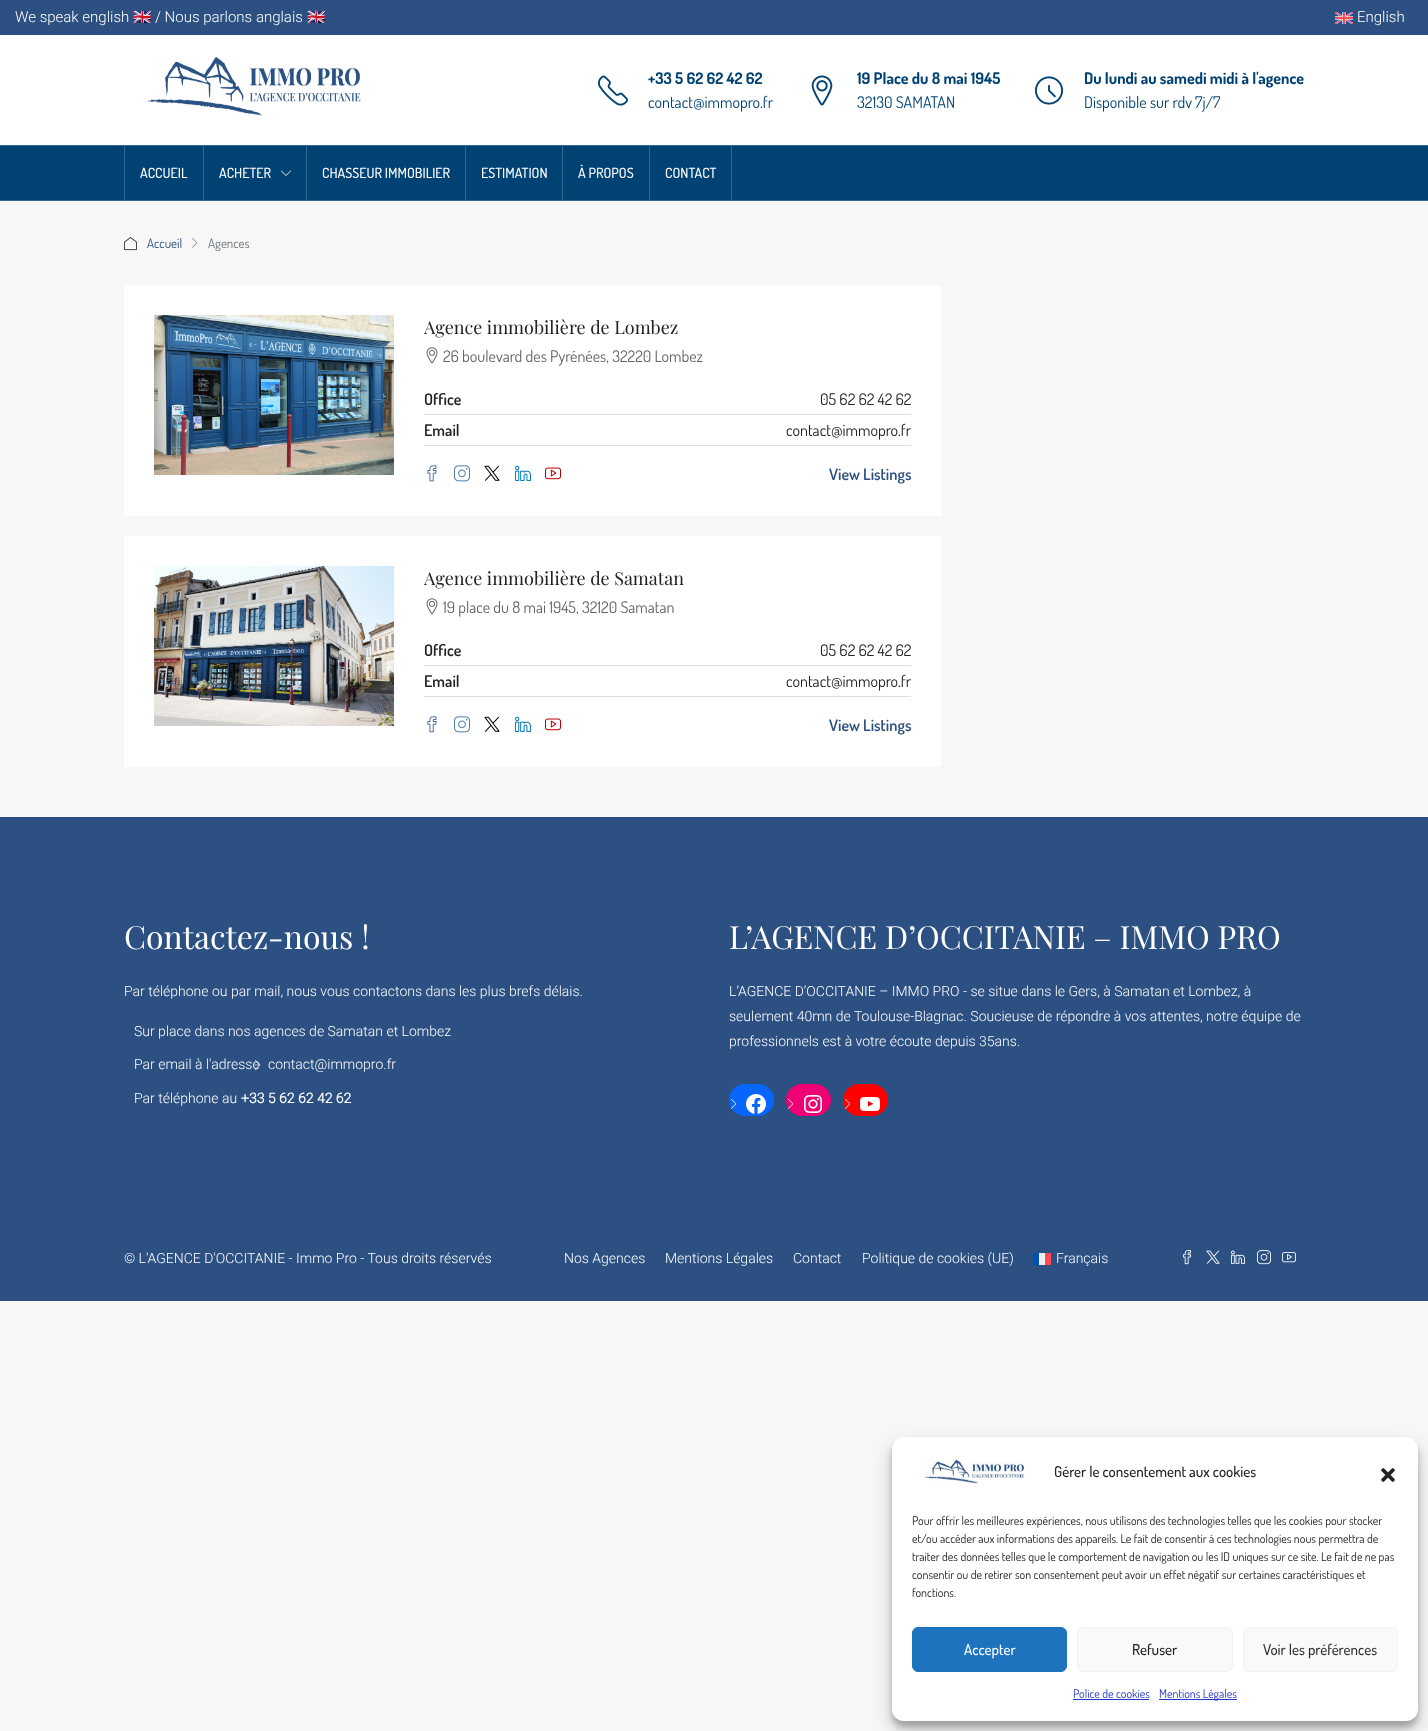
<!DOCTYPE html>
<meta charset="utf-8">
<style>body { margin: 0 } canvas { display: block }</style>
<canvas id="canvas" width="1428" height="1731"></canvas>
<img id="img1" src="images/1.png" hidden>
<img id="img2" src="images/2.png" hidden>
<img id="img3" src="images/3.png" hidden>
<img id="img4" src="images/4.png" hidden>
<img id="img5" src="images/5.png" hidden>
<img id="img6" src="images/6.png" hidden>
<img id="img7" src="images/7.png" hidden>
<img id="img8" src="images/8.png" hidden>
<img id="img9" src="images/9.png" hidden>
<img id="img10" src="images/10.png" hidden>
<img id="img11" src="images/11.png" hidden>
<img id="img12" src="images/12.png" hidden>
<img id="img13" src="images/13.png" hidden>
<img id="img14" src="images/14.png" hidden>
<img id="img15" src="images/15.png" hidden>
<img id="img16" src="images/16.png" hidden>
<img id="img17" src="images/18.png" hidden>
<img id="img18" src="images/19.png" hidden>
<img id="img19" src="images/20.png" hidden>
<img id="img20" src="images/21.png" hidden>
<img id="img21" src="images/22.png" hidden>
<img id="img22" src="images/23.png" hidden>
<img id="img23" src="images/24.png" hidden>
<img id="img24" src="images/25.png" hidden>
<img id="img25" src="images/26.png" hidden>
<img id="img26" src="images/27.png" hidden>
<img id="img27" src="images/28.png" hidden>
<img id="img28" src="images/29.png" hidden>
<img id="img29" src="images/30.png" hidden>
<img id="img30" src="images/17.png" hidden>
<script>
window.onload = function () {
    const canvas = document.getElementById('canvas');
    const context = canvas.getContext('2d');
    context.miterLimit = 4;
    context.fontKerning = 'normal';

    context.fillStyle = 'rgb(247, 247, 247)';
    context.fillRect(0, 0, 1428, 1731);
    context.fillStyle = 'rgb(44, 80, 130)';
    context.fillRect(0, 0, 1428, 35);
    context.drawImage(document.getElementById('img1'), 1335, 12, 18, 12);
    context.fillStyle = 'rgb(255, 255, 255)';
    context.fillRect(0, 35, 1428, 110);
    context.drawImage(document.getElementById('img2'), 147, 57, 224, 59);
    context.drawImage(document.getElementById('img3'), 598, 75, 30, 31);
    context.drawImage(document.getElementById('img4'), 811, 75, 22, 31);
    context.drawImage(document.getElementById('img5'), 1034, 76, 30, 29);
    context.fillStyle = 'rgb(0, 66, 116)';
    context.fillRect(0, 146, 1428, 54);
    context.fillStyle = 'rgb(51, 104, 144)';
    context.fillRect(0, 145, 1428, 1);
    context.fillRect(0, 200, 1428, 1);
    context.fillRect(203, 146, 1, 54);
    context.fillRect(124, 146, 1, 54);
    context.fillRect(306, 146, 1, 54);
    context.drawImage(document.getElementById('img6'), 281, 170, 10, 6);
    context.fillRect(465, 146, 1, 54);
    context.fillRect(562, 146, 1, 54);
    context.fillRect(649, 146, 1, 54);
    context.fillRect(731, 146, 1, 54);
    context.drawImage(document.getElementById('img7'), 124, 237, 13, 14);
    context.drawImage(document.getElementById('img8'), 192, 237, 6, 11);
    context.fillStyle = 'rgb(255, 255, 255)';
    context.fillRect(124, 285, 817, 231);
    context.drawImage(document.getElementById('img9'), 154, 315, 240, 160);
    context.drawImage(document.getElementById('img10'), 426, 347, 12, 17);
    context.fillStyle = 'rgb(220, 224, 224)';
    context.fillRect(424, 414, 487, 1);
    context.fillRect(424, 445, 487, 1);
    context.drawImage(document.getElementById('img11'), 427, 465, 10, 17);
    context.drawImage(document.getElementById('img12'), 454, 465, 16, 17);
    context.drawImage(document.getElementById('img13'), 484, 465, 16, 16);
    context.drawImage(document.getElementById('img14'), 515, 465, 16, 16);
    context.drawImage(document.getElementById('img15'), 545, 467, 16, 13);
    context.fillStyle = 'rgb(255, 255, 255)';
    context.fillRect(124, 536, 817, 231);
    context.drawImage(document.getElementById('img16'), 154, 566, 240, 160);
    context.drawImage(document.getElementById('img10'), 426, 598, 12, 17);
    context.fillStyle = 'rgb(220, 224, 224)';
    context.fillRect(424, 665, 487, 1);
    context.fillRect(424, 696, 487, 1);
    context.drawImage(document.getElementById('img11'), 427, 716, 10, 17);
    context.drawImage(document.getElementById('img12'), 454, 716, 16, 17);
    context.drawImage(document.getElementById('img13'), 484, 716, 16, 16);
    context.drawImage(document.getElementById('img14'), 515, 716, 16, 16);
    context.drawImage(document.getElementById('img15'), 545, 718, 16, 13);
    context.fillStyle = 'rgb(44, 80, 130)';
    context.fillRect(0, 817, 1428, 484);
    context.fillStyle = 'rgb(8, 102, 255)';
    context.beginPath();
    context.roundRect(729, 1084, 45, 32, 16);
    context.fill();
    context.drawImage(document.getElementById('img17'), 731, 1098, 6, 11);
    context.drawImage(document.getElementById('img18'), 746, 1094, 20, 20);
    context.fillStyle = 'rgb(240, 0, 117)';
    context.beginPath();
    context.roundRect(786, 1084, 45, 32, 16);
    context.fill();
    context.drawImage(document.getElementById('img19'), 788, 1098, 6, 11);
    context.drawImage(document.getElementById('img20'), 804, 1095, 18, 18);
    context.fillStyle = 'rgb(255, 0, 0)';
    context.beginPath();
    context.roundRect(843, 1084, 45, 32, 16);
    context.fill();
    context.drawImage(document.getElementById('img21'), 845, 1098, 6, 11);
    context.drawImage(document.getElementById('img22'), 860, 1097, 20, 14);
    context.fillStyle = 'rgb(240, 240, 240)';
    context.fillRect(1039, 1253, 6, 12);
    context.fillStyle = 'rgb(255, 75, 85)';
    context.fillRect(1045, 1253, 6, 12);
    context.fillStyle = 'rgb(0, 82, 180)';
    context.fillRect(1033, 1253, 6, 12);
    context.drawImage(document.getElementById('img23'), 1183, 1250, 8, 15);
    context.drawImage(document.getElementById('img24'), 1206, 1250, 14, 14);
    context.drawImage(document.getElementById('img25'), 1231, 1250, 14, 14);
    context.drawImage(document.getElementById('img26'), 1257, 1250, 14, 15);
    context.drawImage(document.getElementById('img27'), 1282, 1252, 14, 11);
    context.fillStyle = 'rgba(0, 0, 0, 0.23)';
    context.filter = 'blur(3px)';
    context.beginPath();
    context.roundRect(892, 1443, 526, 284, 12);
    context.fill();
    context.filter = 'none';
    context.fillStyle = 'rgba(0, 0, 0, 0.19)';
    context.filter = 'blur(10px)';
    context.beginPath();
    context.roundRect(892, 1447, 526, 284, 12);
    context.fill();
    context.filter = 'none';
    context.fillStyle = 'rgb(255, 255, 255)';
    context.beginPath();
    context.roundRect(892, 1437, 526, 284, 12);
    context.fill();
    context.drawImage(document.getElementById('img28'), 924, 1457, 101, 27);
    context.drawImage(document.getElementById('img29'), 1381, 1468, 14, 14);
    context.fillStyle = 'rgb(30, 115, 190)';
    context.beginPath();
    context.roundRect(912.5, 1627.5, 154, 44, 5.5);
    context.fill();
    context.strokeStyle = 'rgb(30, 115, 190)';
    context.stroke();
    context.fillStyle = 'rgb(249, 249, 249)';
    context.beginPath();
    context.roundRect(1077.5, 1627.5, 155, 44, 5.5);
    context.fill();
    context.strokeStyle = 'rgb(242, 242, 242)';
    context.stroke();
    context.beginPath();
    context.roundRect(1243.5, 1627.5, 154, 44, 5.5);
    context.fill();
    context.stroke();
    context.fillStyle = 'rgb(31, 54, 198)';
    context.fillRect(1073, 1699, 76, 1);
    context.fillRect(1159, 1699, 78, 1);
    context.font = '300 15px Roboto';
    context.fillStyle = 'rgb(255, 255, 255)';
    context.fillText('We speak english', 15, 22);
    context.font = '15px Noto Color Emoji';
    context.fillText('🇬🇧', 133, 22);
    context.font = '300 15px Roboto';
    context.fillText('/ Nous parlons anglais', 155, 22);
    context.font = '15px Noto Color Emoji';
    context.fillText('🇬🇧', 307, 22);
    context.font = '300 15px Roboto';
    context.fillText('English', 1357, 22);
    context.font = 'bold 16px Dosis';
    context.fillStyle = 'rgb(0, 66, 116)';
    context.fillText('+33 5 62 62 42 62', 648, 84);
    context.font = '16px Dosis';
    context.fillText('contact@immopro.fr', 648, 108);
    context.font = 'bold 16px Dosis';
    context.fillText('19 Place du 8 mai 1945', 857, 84);
    context.font = '16px Dosis';
    context.fillText('32130 SAMATAN', 857, 108);
    context.font = 'bold 16px Dosis';
    context.fillText('Du lundi au samedi midi à l\'agence', 1084, 84);
    context.font = '16px Dosis';
    context.fillText('Disponible sur rdv 7j/7', 1084, 108);
    context.font = '500 14px Dosis';
    context.fillStyle = 'rgb(255, 255, 255)';
    context.fillText('ACCUEIL', 140, 178);
    context.fillText('ACHETER', 219, 178);
    context.fillText('CHASSEUR IMMOBILIER', 322, 178);
    context.fillText('ESTIMATION', 481, 178);
    context.fillText('À PROPOS', 578, 178);
    context.fillText('CONTACT', 665, 178);
    context.font = '13px Dosis';
    context.fillStyle = 'rgb(44, 80, 130)';
    context.fillText('Accueil', 147, 248);
    context.fillStyle = 'rgb(108, 117, 125)';
    context.fillText('Agences', 208, 248);
    context.font = '18px Playfair Display';
    context.fillStyle = 'rgb(34, 34, 34)';
    context.fillText('Agence immobilière de Lombez', 424, 334);
    context.font = '16px Dosis';
    context.fillStyle = 'rgb(99, 99, 99)';
    context.fillText('26 boulevard des Pyrénées, 32220 Lombez', 443, 362);
    context.font = '600 16px Dosis';
    context.fillStyle = 'rgb(34, 34, 34)';
    context.fillText('Office', 424, 405);
    context.font = '16px Dosis';
    context.fillText('05 62 62 42 62', 820, 405);
    context.font = '600 16px Dosis';
    context.fillText('Email', 424, 436);
    context.font = '16px Dosis';
    context.fillText('contact@immopro.fr', 786, 436);
    context.font = '600 16px Dosis';
    context.fillStyle = 'rgb(44, 80, 130)';
    context.fillText('View Listings', 829, 480);
    context.font = '18px Playfair Display';
    context.fillStyle = 'rgb(34, 34, 34)';
    context.fillText('Agence immobilière de Samatan', 424, 585);
    context.font = '16px Dosis';
    context.fillStyle = 'rgb(99, 99, 99)';
    context.fillText('19 place du 8 mai 1945, 32120 Samatan', 443, 613);
    context.font = '600 16px Dosis';
    context.fillStyle = 'rgb(34, 34, 34)';
    context.fillText('Office', 424, 656);
    context.font = '16px Dosis';
    context.fillText('05 62 62 42 62', 820, 656);
    context.font = '600 16px Dosis';
    context.fillText('Email', 424, 687);
    context.font = '16px Dosis';
    context.fillText('contact@immopro.fr', 786, 687);
    context.font = '600 16px Dosis';
    context.fillStyle = 'rgb(44, 80, 130)';
    context.fillText('View Listings', 829, 731);
    context.font = '32px Playfair Display';
    context.fillStyle = 'rgb(255, 255, 255)';
    context.fillText('Contactez-nous !', 124, 949);
    context.font = '300 14px Roboto';
    context.fillText('Par téléphone ou par mail, nous vous contactons dans les plus brefs délais.', 124, 996);
    context.fillText('Sur place dans nos agences de Samatan et Lombez', 134, 1036);
    context.fillText('Par email à l\'adresse', 134, 1069);
    context.fillText('contact@immopro.fr', 268, 1069);
    context.drawImage(document.getElementById('img30'), 255, 1059, 6, 11);
    context.fillText('Par téléphone au', 134, 1103);
    context.font = 'bold 14px Roboto';
    context.fillText('+33 5 62 62 42 62', 241, 1103);
    context.font = '32px Playfair Display';
    context.fillText('L’AGENCE D’OCCITANIE – IMMO PRO', 729, 949);
    context.font = '300 14px Roboto';
    context.fillText('L’AGENCE D’OCCITANIE – IMMO PRO - se situe dans le Gers, à Samatan et Lombez, à', 729, 996);
    context.fillText('seulement 40mn de Toulouse-Blagnac. Soucieuse de répondre à vos attentes, notre équipe de', 729, 1021);
    context.fillText('professionnels est à votre écoute depuis 35ans.', 729, 1046);
    context.fillText('© L\'AGENCE D\'OCCITANIE - Immo Pro - Tous droits réservés', 124, 1263);
    context.fillText('Nos Agences', 564, 1263);
    context.fillText('Mentions Légales', 665, 1263);
    context.fillText('Contact', 793, 1263);
    context.fillText('Politique de cookies (UE)', 862, 1263);
    context.fillText('Français', 1056, 1263);
    context.font = '500 15px Dosis';
    context.fillStyle = 'rgb(34, 34, 34)';
    context.fillText('Gérer le consentement aux cookies', 1054, 1477);
    context.font = '12px Dosis';
    context.fillText('Pour offrir les meilleures expériences, nous utilisons des technologies telles que les cookies pour stocker', 912, 1525);
    context.fillText('et/ou accéder aux informations des appareils. Le fait de consentir à ces technologies nous permettra de', 912, 1543);
    context.fillText('traiter des données telles que le comportement de navigation ou les ID uniques sur ce site. Le fait de ne pas', 912, 1561);
    context.fillText('consentir ou de retirer son consentement peut avoir un effet négatif sur certaines caractéristiques et', 912, 1579);
    context.fillText('fonctions.', 912, 1597);
    context.font = '500 15px Dosis';
    context.fillStyle = 'rgb(255, 255, 255)';
    context.fillText('Accepter', 964, 1655);
    context.fillStyle = 'rgb(34, 34, 34)';
    context.fillText('Refuser', 1132, 1655);
    context.fillStyle = 'rgb(51, 51, 51)';
    context.fillText('Voir les préférences', 1263, 1655);
    context.font = '12px Dosis';
    context.fillStyle = 'rgb(31, 54, 198)';
    context.fillText('Police de cookies', 1073, 1698);
    context.fillText('Mentions Légales', 1159, 1698);
};
</script>
